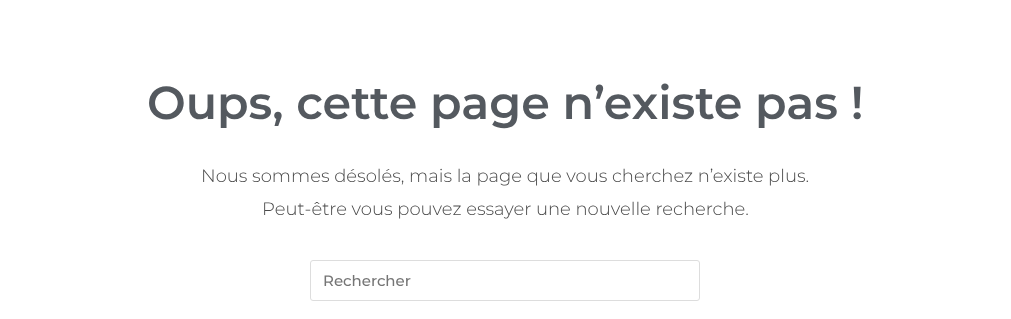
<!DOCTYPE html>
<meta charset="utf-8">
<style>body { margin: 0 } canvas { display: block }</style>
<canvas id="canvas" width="1011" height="319"></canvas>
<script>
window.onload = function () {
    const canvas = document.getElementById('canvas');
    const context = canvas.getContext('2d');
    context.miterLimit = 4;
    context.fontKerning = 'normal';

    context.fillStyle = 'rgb(255, 255, 255)';
    context.fillRect(0, 0, 1011, 319);
    context.beginPath();
    context.roundRect(310.5, 260.5, 389, 40, 2.5);
    context.strokeStyle = 'rgb(221, 221, 221)';
    context.stroke();
    context.font = '600 46px Montserrat';
    context.fillStyle = 'rgb(84, 89, 95)';
    context.fillText('Oups, cette page n’existe pas !', 147, 119);
    context.font = '300 18px Montserrat';
    context.fillStyle = 'rgb(74, 74, 74)';
    context.fillText('Nous sommes désolés, mais la page que vous cherchez n’existe plus.', 201, 182);
    context.fillText('Peut-être vous pouvez essayer une nouvelle recherche.', 262, 215);
    context.font = '500 15px Montserrat';
    context.fillStyle = 'rgb(117, 117, 117)';
    context.fillText('Rechercher', 323, 286);
};
</script>
